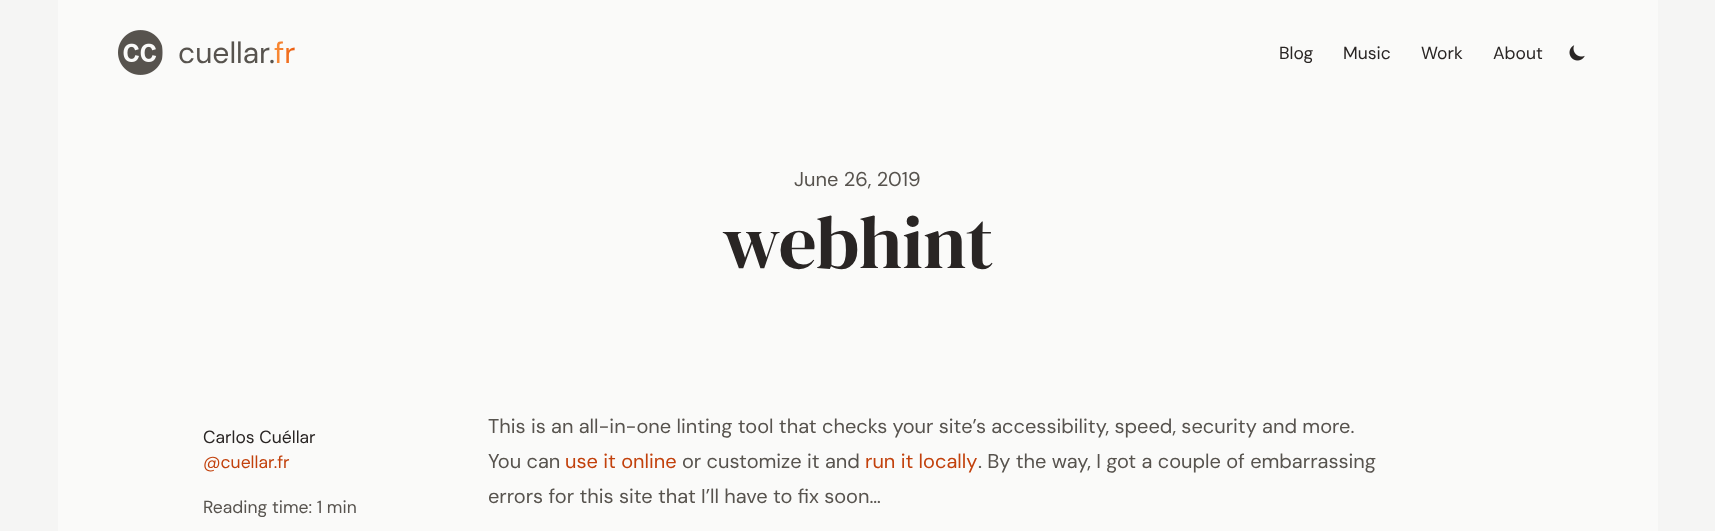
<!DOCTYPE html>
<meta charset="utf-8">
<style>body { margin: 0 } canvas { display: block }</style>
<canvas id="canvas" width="1715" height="531"></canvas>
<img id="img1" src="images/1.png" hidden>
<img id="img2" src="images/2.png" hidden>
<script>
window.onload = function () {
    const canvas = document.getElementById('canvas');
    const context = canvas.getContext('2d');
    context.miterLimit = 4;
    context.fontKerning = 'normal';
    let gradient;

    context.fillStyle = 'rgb(245, 245, 244)';
    context.fillRect(0, 0, 1715, 531);
    context.fillStyle = 'rgb(250, 250, 249)';
    context.fillRect(58, 0, 1600, 531);
    context.drawImage(document.getElementById('img1'), 118, 30, 45, 45);
    context.drawImage(document.getElementById('img2'), 1569, 45, 16, 16);
    context.font = '30px DM Sans';
    context.fillStyle = 'rgb(87, 83, 78)';
    context.fillText('cuellar.', 178, 63);
    gradient = context.createLinearGradient(274, 52, 296, 52);
    gradient.addColorStop(0, 'rgb(251, 146, 60)');
    gradient.addColorStop(1, 'rgb(234, 88, 12)');
    context.fillStyle = gradient;
    context.fillText('fr', 274, 63);
    context.font = '17.5px DM Sans';
    context.fillStyle = 'rgb(41, 37, 36)';
    context.fillText('Blog', 1279, 59);
    context.fillText('Music', 1343, 59);
    context.fillText('Work', 1421, 59);
    context.fillText('About', 1493, 59);
    context.font = '20px DM Sans';
    context.fillStyle = 'rgb(87, 83, 78)';
    context.fillText('June 26, 2019', 794, 186);
    context.font = '75px DM Serif Display';
    context.fillStyle = 'rgb(41, 37, 36)';
    context.fillText('webhint', 722, 268);
    context.font = '17.5px DM Sans';
    context.fillText('Carlos Cuéllar', 203, 443);
    context.fillStyle = 'rgb(194, 65, 12)';
    context.fillText('@cuellar.fr', 203, 468);
    context.fillStyle = 'rgb(87, 83, 78)';
    context.fillText('Reading time: 1 min', 203, 513);
    context.font = '20px DM Sans';
    context.fillText('This is an all-in-one linting tool that checks your site’s accessibility, speed, security and more.', 488, 433);
    context.fillText('You can', 488, 468);
    context.fillStyle = 'rgb(194, 65, 12)';
    context.fillText('use it online', 565, 468);
    context.fillStyle = 'rgb(87, 83, 78)';
    context.fillText('or customize it and', 682, 468);
    context.fillStyle = 'rgb(194, 65, 12)';
    context.fillText('run it locally', 865, 468);
    context.fillStyle = 'rgb(87, 83, 78)';
    context.fillText('. By the way, I got a couple of embarrassing', 978, 468);
    context.fillText('errors for this site that I’ll have to fix soon…', 488, 503);
};
</script>
